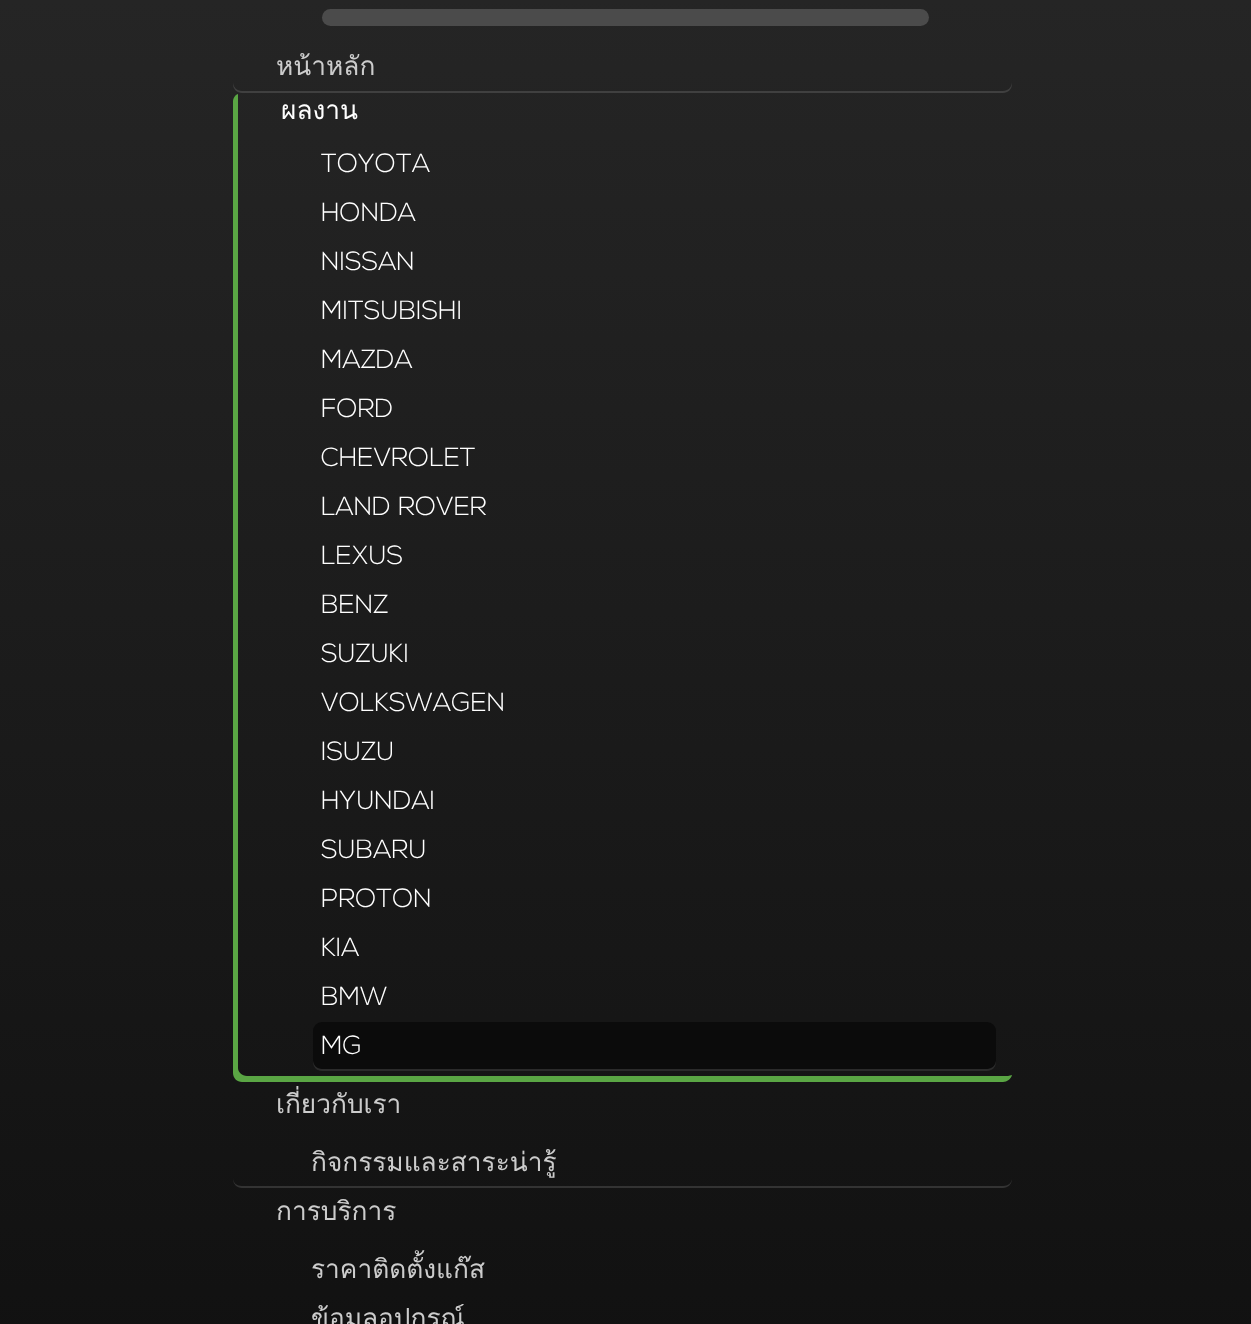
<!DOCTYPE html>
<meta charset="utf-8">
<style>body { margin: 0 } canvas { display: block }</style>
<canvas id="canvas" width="1251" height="1324"></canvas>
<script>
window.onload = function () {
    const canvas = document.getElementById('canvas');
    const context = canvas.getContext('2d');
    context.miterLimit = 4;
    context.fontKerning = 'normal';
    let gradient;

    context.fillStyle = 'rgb(255, 255, 255)';
    context.fillRect(0, 0, 1251, 1324);
    gradient = context.createLinearGradient(626, 0, 626, 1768);
    gradient.addColorStop(0, 'rgb(37, 37, 37)');
    gradient.addColorStop(1, 'rgb(11, 11, 11)');
    context.fillStyle = gradient;
    context.fillRect(0, 0, 1251, 1324);
    context.fillStyle = 'rgb(75, 75, 75)';
    context.beginPath();
    context.roundRect(322, 9, 607, 17, 8.5);
    context.fill();
    context.fillStyle = 'rgb(64, 64, 64)';
    context.beginPath();
    context.moveTo(233, 82);
    context.lineTo(233, 84);
    context.bezierCurveTo(233, 89, 237, 93, 242, 93);
    context.lineTo(1003, 93);
    context.bezierCurveTo(1008, 93, 1012, 89, 1012, 84);
    context.lineTo(1012, 82);
    context.bezierCurveTo(1012, 87, 1008, 91, 1003, 91);
    context.lineTo(242, 91);
    context.bezierCurveTo(237, 91, 233, 87, 233, 82);
    context.closePath();
    context.fill();
    context.fillStyle = 'rgb(90, 166, 68)';
    context.beginPath();
    context.moveTo(238, 94);
    context.bezierCurveTo(235, 95, 233, 98, 233, 102);
    context.lineTo(233, 1073);
    context.bezierCurveTo(233, 1078, 237, 1082, 242, 1082);
    context.lineTo(1003, 1082);
    context.bezierCurveTo(1007, 1082, 1011, 1079, 1012, 1075);
    context.lineTo(1008, 1076);
    context.lineTo(247, 1076);
    context.bezierCurveTo(242, 1076, 238, 1072, 238, 1068);
    context.lineTo(238, 96);
    context.closePath();
    context.fill();
    context.fillStyle = 'rgb(11, 11, 11)';
    context.beginPath();
    context.roundRect(313, 1022, 683, 49, 9);
    context.fill();
    context.fillStyle = 'rgba(225, 225, 225, 0.15)';
    context.beginPath();
    context.moveTo(313, 1060);
    context.lineTo(313, 1062);
    context.bezierCurveTo(313, 1067, 317, 1071, 322, 1071);
    context.lineTo(987, 1071);
    context.bezierCurveTo(992, 1071, 996, 1067, 996, 1062);
    context.lineTo(996, 1060);
    context.bezierCurveTo(996, 1065, 992, 1069, 987, 1069);
    context.lineTo(322, 1069);
    context.bezierCurveTo(317, 1069, 313, 1065, 313, 1060);
    context.closePath();
    context.fill();
    context.fillStyle = 'rgb(51, 51, 51)';
    context.beginPath();
    context.moveTo(233, 1178);
    context.lineTo(233, 1179);
    context.bezierCurveTo(233, 1184, 237, 1188, 242, 1188);
    context.lineTo(1003, 1188);
    context.bezierCurveTo(1008, 1188, 1012, 1184, 1012, 1179);
    context.lineTo(1012, 1178);
    context.bezierCurveTo(1012, 1183, 1008, 1186, 1003, 1186);
    context.lineTo(242, 1186);
    context.bezierCurveTo(237, 1186, 233, 1183, 233, 1178);
    context.closePath();
    context.fill();
    context.font = '26.25px Loma';
    context.fillStyle = 'rgb(204, 204, 204)';
    context.fillText('หน้าหลัก', 276, 75);
    context.fillStyle = 'rgb(255, 255, 255)';
    context.fillText('ผลงาน', 281, 119);
    context.font = '300 26.25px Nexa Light';
    context.fillText('TOYOTA', 321, 172);
    context.fillText('HONDA', 321, 221);
    context.fillText('NISSAN', 321, 270);
    context.fillText('MITSUBISHI', 321, 319);
    context.fillText('MAZDA', 321, 368);
    context.fillText('FORD', 321, 417);
    context.fillText('CHEVROLET', 321, 466);
    context.fillText('LAND ROVER', 321, 515);
    context.fillText('LEXUS', 321, 564);
    context.fillText('BENZ', 321, 613);
    context.fillText('SUZUKI', 321, 662);
    context.fillText('VOLKSWAGEN', 321, 711);
    context.fillText('ISUZU', 321, 760);
    context.fillText('HYUNDAI', 321, 809);
    context.fillText('SUBARU', 321, 858);
    context.fillText('PROTON', 321, 907);
    context.fillText('KIA', 321, 956);
    context.fillText('BMW', 321, 1005);
    context.fillText('MG', 321, 1054);
    context.font = '26.25px Loma';
    context.fillStyle = 'rgb(204, 204, 204)';
    context.fillText('เกี่ยวกับเรา', 276, 1113);
    context.fillText('กิจกรรมและสาระน่ารู้', 311, 1171);
    context.fillText('การบริการ', 276, 1220);
    context.fillText('ราคาติดตั้งแก๊ส', 311, 1278);
    context.fillText('ข้อมูลอุปกรณ์', 311, 1327);
};
</script>
